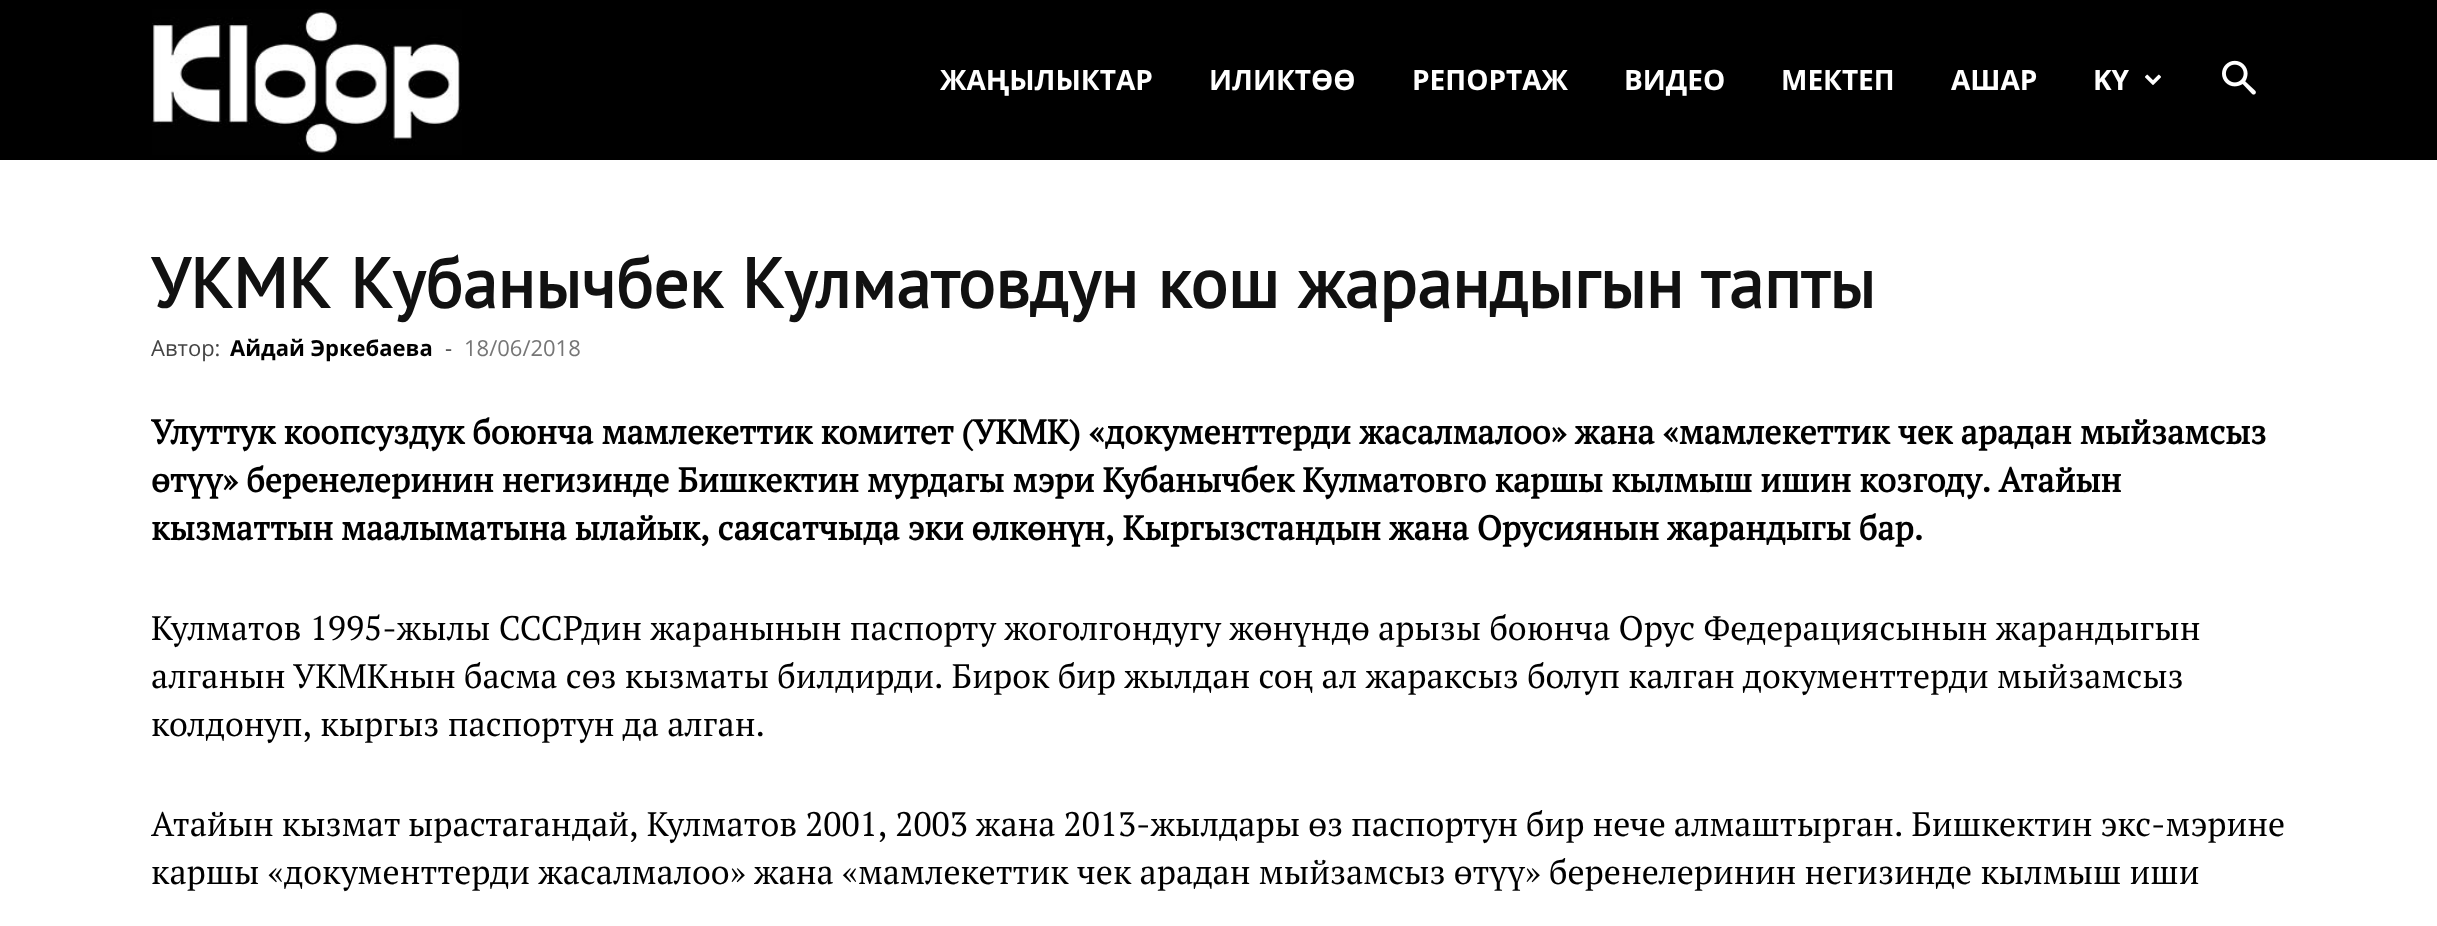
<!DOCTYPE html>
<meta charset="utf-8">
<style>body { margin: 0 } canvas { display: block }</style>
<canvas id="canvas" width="2437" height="926"></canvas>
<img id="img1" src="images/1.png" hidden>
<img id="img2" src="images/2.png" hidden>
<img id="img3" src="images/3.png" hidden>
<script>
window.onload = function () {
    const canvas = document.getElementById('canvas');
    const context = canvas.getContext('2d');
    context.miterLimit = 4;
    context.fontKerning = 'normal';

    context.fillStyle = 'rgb(255, 255, 255)';
    context.fillRect(0, 0, 2437, 926);
    context.fillStyle = 'rgb(0, 0, 0)';
    context.fillRect(0, 0, 2437, 160);
    context.drawImage(document.getElementById('img1'), 152, 9, 310, 146);
    context.drawImage(document.getElementById('img2'), 2145, 74, 16, 11);
    context.drawImage(document.getElementById('img3'), 2222, 60, 34, 35);
    context.font = 'bold 28px Open Sans';
    context.fillStyle = 'rgb(255, 255, 255)';
    context.fillText('ЖАҢЫЛЫКТАР', 940, 90);
    context.fillText('ИЛИКТӨӨ', 1209, 90);
    context.fillText('РЕПОРТАЖ', 1412, 90);
    context.fillText('ВИДЕО', 1624, 90);
    context.fillText('МЕКТЕП', 1781, 90);
    context.fillText('АШАР', 1951, 90);
    context.fillText('KY', 2093, 90);
    context.wordSpacing = '0.5px';
    context.font = 'bold 70px PT Sans';
    context.fillStyle = 'rgb(17, 17, 17)';
    context.fillText('УКМК Кубанычбек Кулматовдун кош жарандыгын тапты', 151, 308);
    context.wordSpacing = '0px';
    context.font = '22px Open Sans';
    context.fillStyle = 'rgb(68, 68, 68)';
    context.fillText('Автор:', 151, 356);
    context.font = 'bold 22px Open Sans';
    context.fillStyle = 'rgb(0, 0, 0)';
    context.fillText('Айдай Эркебаева', 230, 356);
    context.font = '22px Open Sans';
    context.fillStyle = 'rgb(68, 68, 68)';
    context.fillText('-', 445, 356);
    context.fillStyle = 'rgb(118, 118, 118)';
    context.fillText('18/06/2018', 464, 356);
    context.font = 'bold 34px PT Serif';
    context.fillStyle = 'rgb(0, 0, 0)';
    context.fillText('Улуттук коопсуздук боюнча мамлекеттик комитет (УКМК) «документтерди жасалмалоо» жана «мамлекеттик чек арадан мыйзамсыз', 151, 444);
    context.fillText('өтүү» беренелеринин негизинде Бишкектин мурдагы мэри Кубанычбек Кулматовго каршы кылмыш ишин козгоду. Атайын', 151, 492);
    context.wordSpacing = '-0.25px';
    context.fillText('кызматтын маалыматына ылайык, саясатчыда эки өлкөнүн, Кыргызстандын жана Орусиянын жарандыгы бар.', 151, 540);
    context.wordSpacing = '0px';
    context.font = '34px PT Serif';
    context.fillText('Кулматов 1995-жылы СССРдин жаранынын паспорту жоголгондугу жөнүндө арызы боюнча Орус Федерациясынын жарандыгын', 151, 640);
    context.fillText('алганын УКМКнын басма сөз кызматы билдирди. Бирок бир жылдан соң ал жараксыз болуп калган документтерди мыйзамсыз', 151, 688);
    context.fillText('колдонуп, кыргыз паспортун да алган.', 151, 736);
    context.wordSpacing = '-0.25px';
    context.fillText('Атайын кызмат ырастагандай, Кулматов 2001, 2003 жана 2013-жылдары өз паспортун бир нече алмаштырган. Бишкектин экс-мэрине', 151, 836);
    context.wordSpacing = '0px';
    context.fillText('каршы «документтерди жасалмалоо» жана «мамлекеттик чек арадан мыйзамсыз өтүү» беренелеринин негизинде кылмыш иши', 151, 884);
};
</script>
